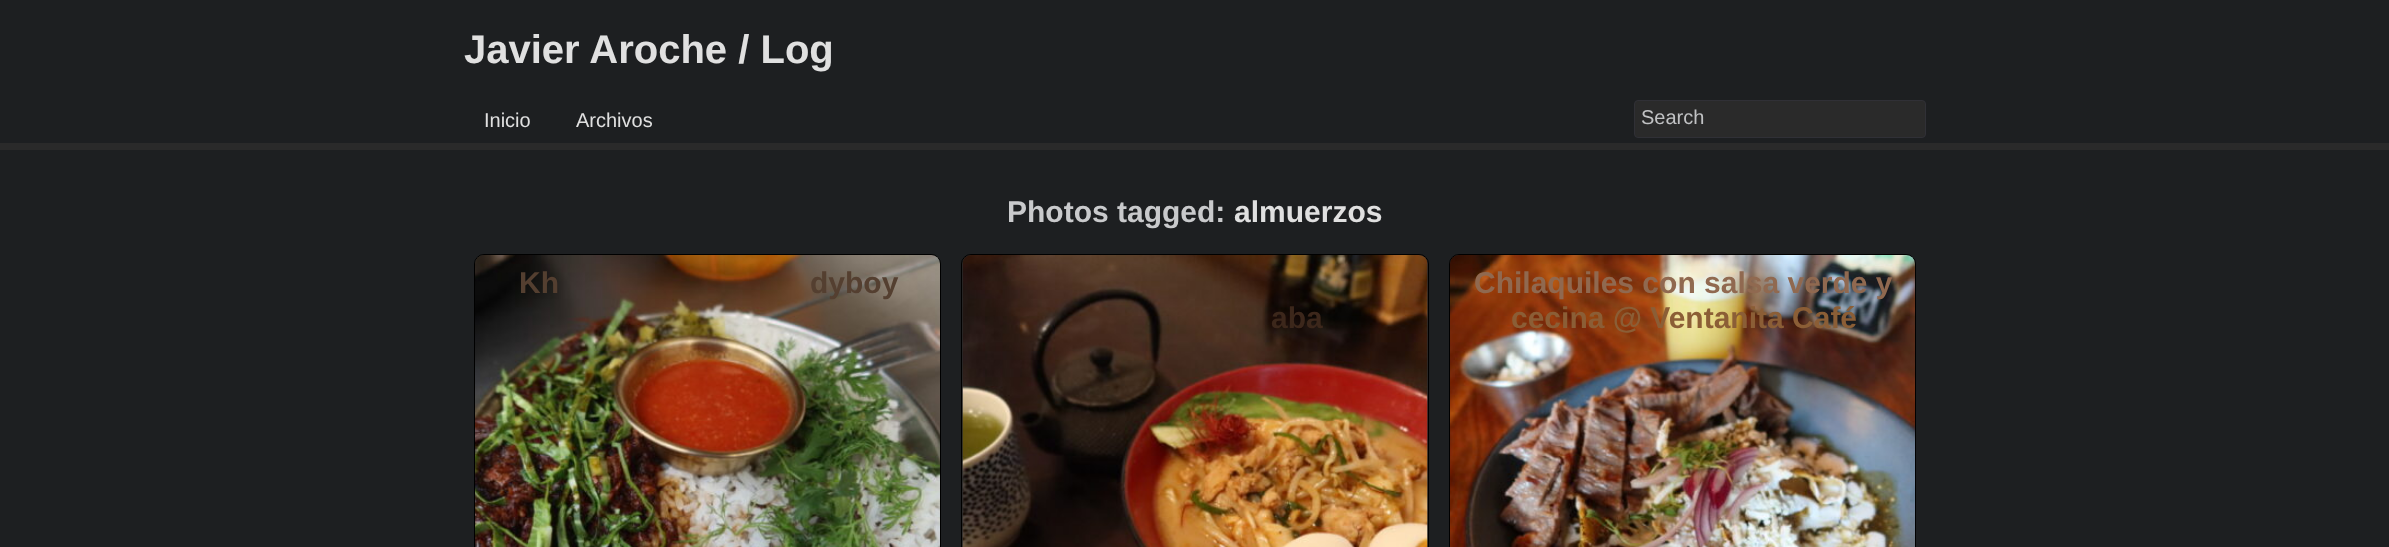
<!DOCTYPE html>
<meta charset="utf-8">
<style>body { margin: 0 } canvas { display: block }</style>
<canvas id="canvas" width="2389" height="547"></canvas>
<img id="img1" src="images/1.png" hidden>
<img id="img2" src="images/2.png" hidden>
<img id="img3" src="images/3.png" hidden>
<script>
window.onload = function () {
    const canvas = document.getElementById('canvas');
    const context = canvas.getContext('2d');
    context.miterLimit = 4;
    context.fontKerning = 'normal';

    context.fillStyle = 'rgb(29, 31, 33)';
    context.fillRect(0, 0, 2389, 547);
    context.fillStyle = 'rgb(42, 42, 42)';
    context.fillRect(0, 143, 2389, 7);
    context.beginPath();
    context.roundRect(1634.5, 100.5, 291, 37, 3.5);
    context.fill();
    context.strokeStyle = 'rgb(48, 48, 54)';
    context.stroke();
    context.beginPath();
    context.roundRect(474.5, 254.5, 466, 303, 9.5);
    context.fill();
    context.strokeStyle = 'rgb(0, 0, 0)';
    context.stroke();
    context.drawImage(document.getElementById('img1'), 475, 255, 465, 292);
    context.beginPath();
    context.roundRect(961.5, 254.5, 467, 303, 9.5);
    context.fill();
    context.stroke();
    context.drawImage(document.getElementById('img2'), 962, 255, 466, 292);
    context.beginPath();
    context.roundRect(1449.5, 254.5, 466, 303, 9.5);
    context.fill();
    context.stroke();
    context.drawImage(document.getElementById('img3'), 1450, 255, 465, 292);
    context.font = 'bold 40px Liberation Sans';
    context.fillStyle = 'rgb(224, 224, 224)';
    context.fillText('Javier Aroche / Log', 464, 63);
    context.font = '20px Liberation Sans';
    context.fillText('Inicio', 484, 127);
    context.fillText('Archivos', 576, 127);
    context.fillStyle = 'rgb(193, 194, 196)';
    context.fillText('Search', 1641, 124);
    context.font = 'bold 30px Liberation Sans';
    context.fillStyle = 'rgb(201, 202, 204)';
    context.fillText('Photos tagged:', 1007, 222);
    context.fillStyle = 'rgb(224, 224, 224)';
    context.fillText('almuerzos', 1234, 222);
    context.fillStyle = 'rgb(84, 63, 48)';
    context.fillText('Kh', 519, 293);
    context.fillText('dyboy', 810, 293);
    context.fillStyle = 'rgb(60, 39, 27)';
    context.fillText('aba', 1271, 328);
    context.fillStyle = 'rgb(144, 105, 80)';
    context.fillText('Chilaquiles con salsa verde y', 1474, 293);
    context.fillStyle = 'rgb(139, 94, 54)';
    context.fillText('cecina @ Ventanita Café', 1511, 328);
};
</script>
